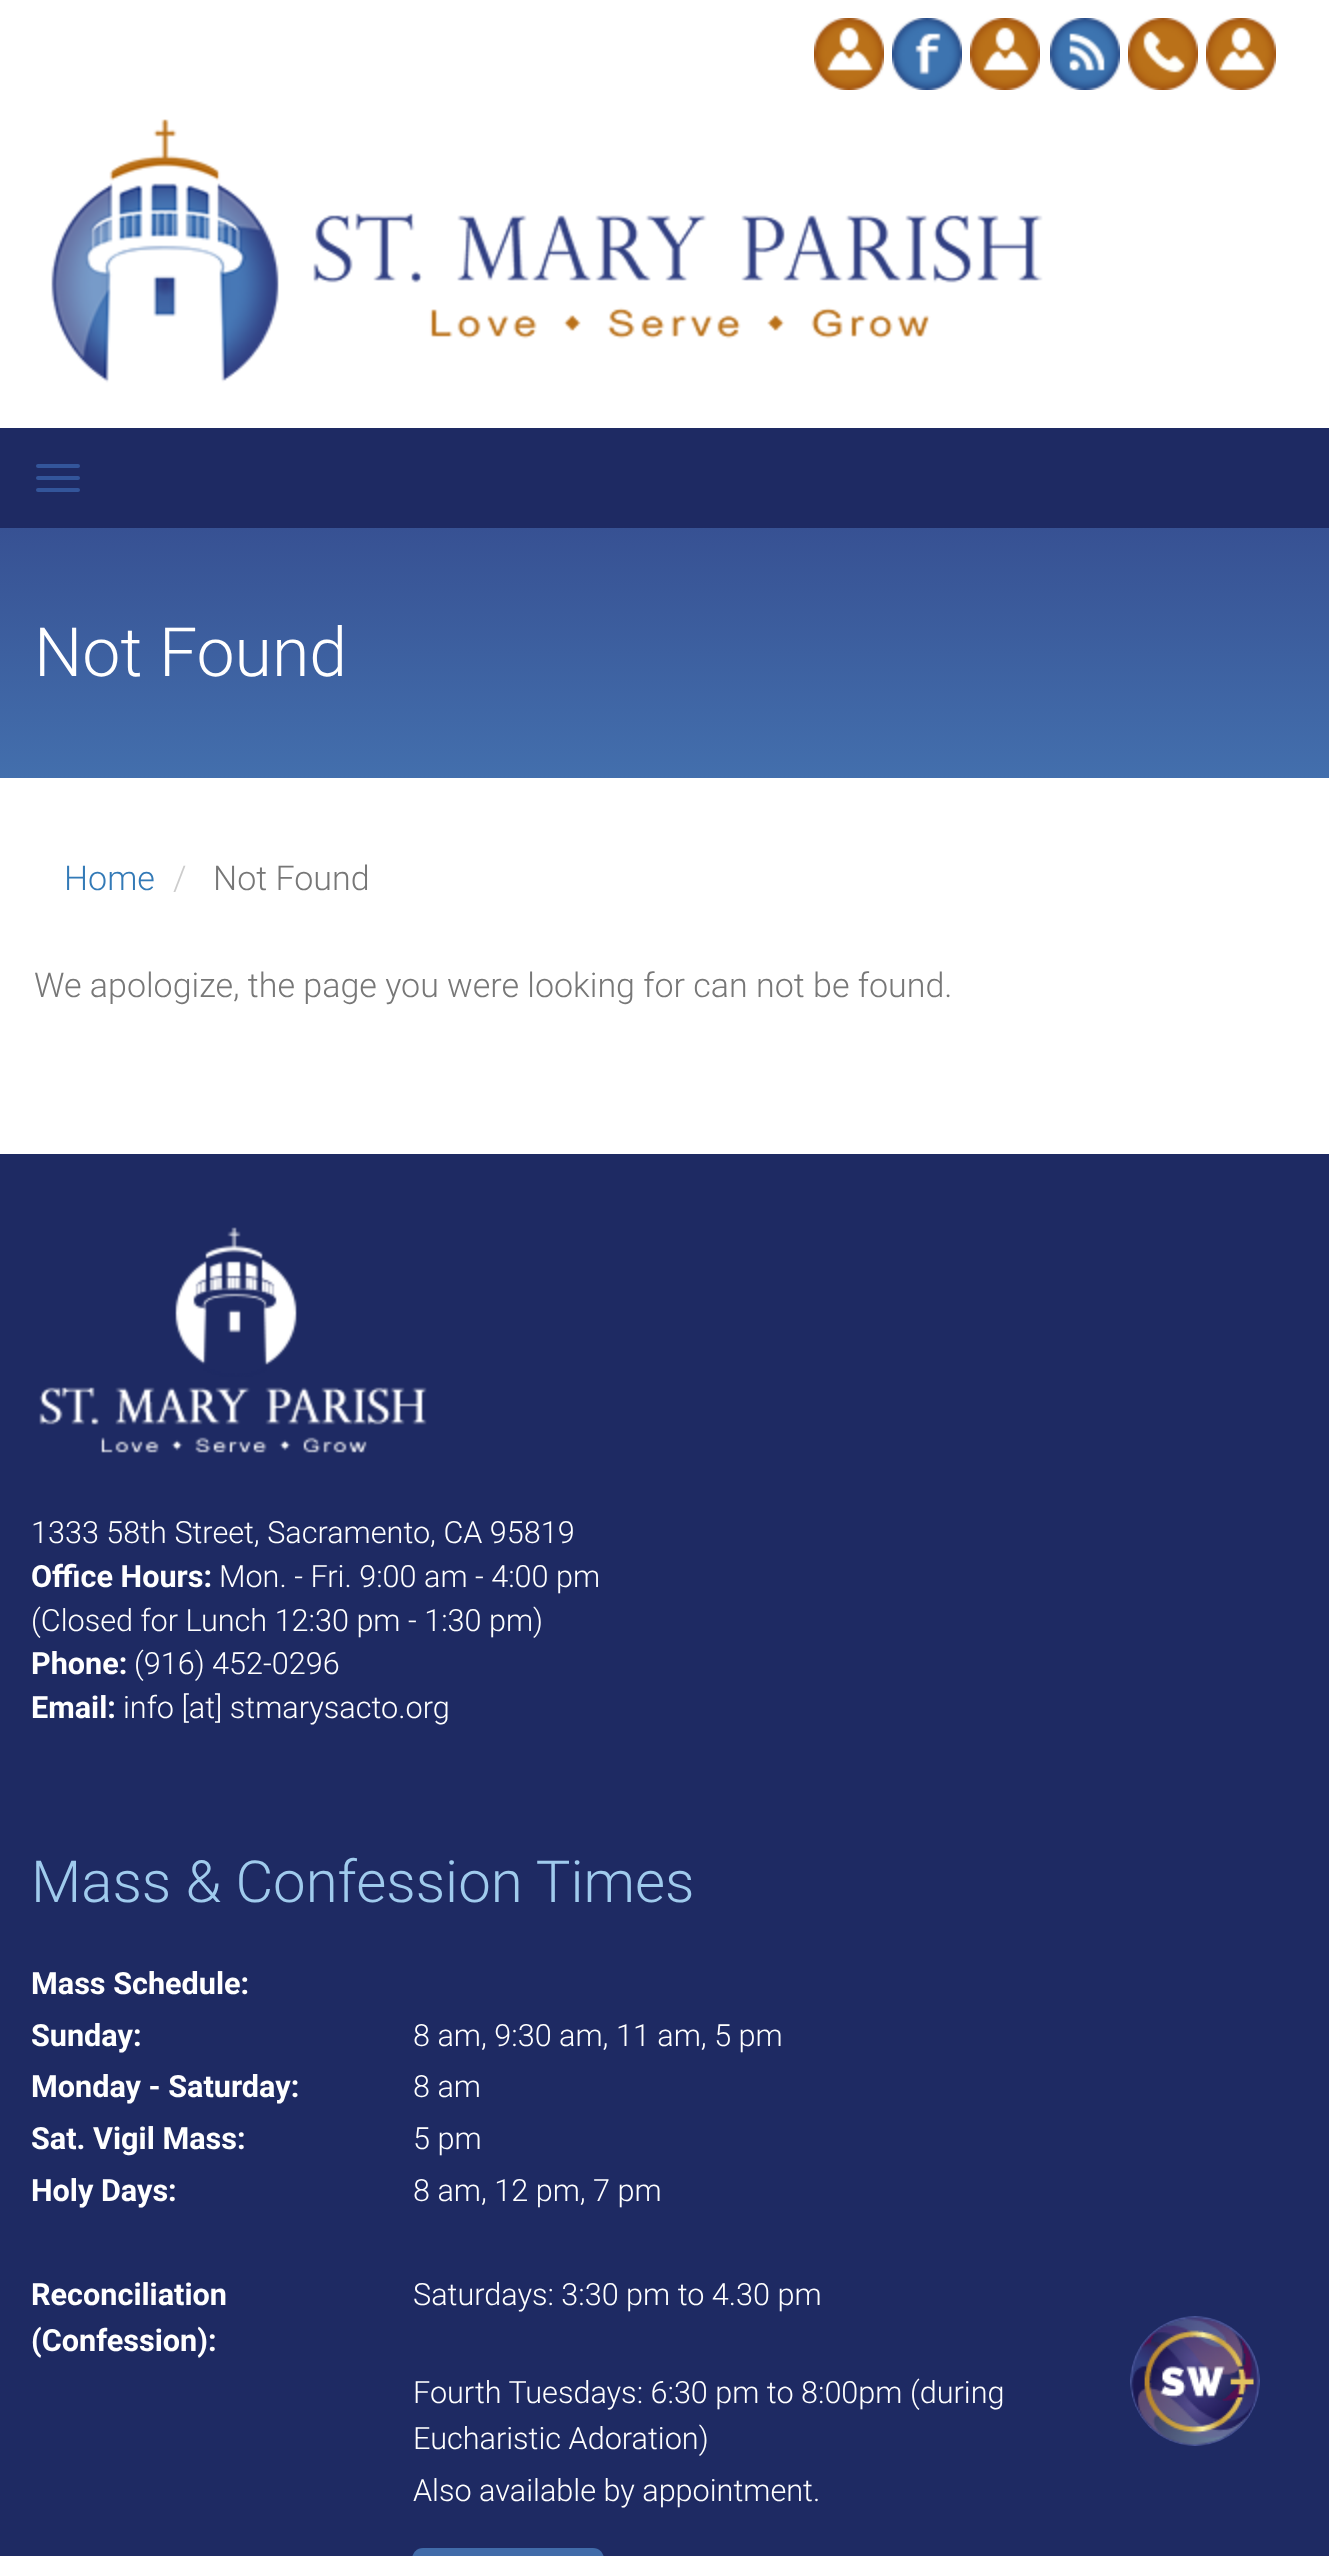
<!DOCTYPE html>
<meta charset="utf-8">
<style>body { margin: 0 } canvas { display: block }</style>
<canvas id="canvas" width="1329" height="2556"></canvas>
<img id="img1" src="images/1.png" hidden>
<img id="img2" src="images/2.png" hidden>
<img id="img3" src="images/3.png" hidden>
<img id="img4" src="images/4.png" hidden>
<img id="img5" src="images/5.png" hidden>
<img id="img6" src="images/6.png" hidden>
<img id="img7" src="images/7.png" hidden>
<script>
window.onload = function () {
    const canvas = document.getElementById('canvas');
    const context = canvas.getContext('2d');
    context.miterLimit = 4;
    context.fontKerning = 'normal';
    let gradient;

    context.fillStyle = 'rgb(255, 255, 255)';
    context.fillRect(0, 0, 1329, 2556);
    context.drawImage(document.getElementById('img1'), 814, 18, 70, 72);
    context.drawImage(document.getElementById('img2'), 892, 18, 70, 72);
    context.drawImage(document.getElementById('img1'), 970, 18, 70, 72);
    context.drawImage(document.getElementById('img3'), 1050, 18, 70, 72);
    context.drawImage(document.getElementById('img4'), 1128, 18, 70, 72);
    context.drawImage(document.getElementById('img1'), 1206, 18, 70, 72);
    context.drawImage(document.getElementById('img5'), 51, 119, 992, 264);
    context.fillStyle = 'rgb(30, 42, 99)';
    context.fillRect(0, 428, 1329, 100);
    context.fillStyle = 'rgb(51, 85, 154)';
    context.beginPath();
    context.roundRect(36, 464, 44, 4, 2);
    context.fill();
    context.beginPath();
    context.roundRect(36, 476, 44, 4, 2);
    context.fill();
    context.beginPath();
    context.roundRect(36, 488, 44, 4, 2);
    context.fill();
    gradient = context.createLinearGradient(665, 528, 665, 778);
    gradient.addColorStop(0, 'rgb(55, 81, 147)');
    gradient.addColorStop(1, 'rgb(67, 111, 173)');
    context.fillStyle = gradient;
    context.fillRect(0, 528, 1329, 250);
    context.fillStyle = 'rgb(30, 42, 99)';
    context.fillRect(0, 1154, 1329, 1402);
    context.drawImage(document.getElementById('img6'), 39, 1227, 388, 226);
    context.fillStyle = 'rgb(65, 107, 169)';
    context.beginPath();
    context.roundRect(412, 2548, 192, 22, 14);
    context.fill();
    context.drawImage(document.getElementById('img7'), 1130, 2316, 130, 130);
    context.font = '300 68px Roboto';
    context.fillStyle = 'rgb(255, 255, 255)';
    context.fillText('Not Found', 34, 676);
    context.font = '300 34px Roboto';
    context.fillStyle = 'rgb(51, 122, 183)';
    context.fillText('Home', 64, 890);
    context.fillStyle = 'rgb(204, 204, 204)';
    context.fillText('/', 173, 890);
    context.fillStyle = 'rgb(119, 119, 119)';
    context.fillText('Not Found', 213, 890);
    context.fillText('We apologize, the page you were looking for can not be found.', 34, 997);
    context.font = '300 30.6px Roboto';
    context.fillStyle = 'rgb(255, 255, 255)';
    context.fillText('1333 58th Street, Sacramento, CA 95819', 31, 1543);
    context.font = 'bold 30.6px Roboto';
    context.fillText('Office Hours:', 31, 1587);
    context.font = '300 30.6px Roboto';
    context.fillText('Mon. - Fri. 9:00 am - 4:00 pm', 219, 1587);
    context.fillText('(Closed for Lunch 12:30 pm - 1:30 pm)', 31, 1631);
    context.font = 'bold 30.6px Roboto';
    context.fillText('Phone:', 31, 1674);
    context.font = '300 30.6px Roboto';
    context.fillText('(916) 452-0296', 134, 1674);
    context.font = 'bold 30.6px Roboto';
    context.fillText('Email:', 31, 1718);
    context.font = '300 30.6px Roboto';
    context.fillText('info [at] stmarysacto.org', 123, 1718);
    context.font = '300 58.1px Roboto';
    context.fillStyle = 'rgb(160, 203, 237)';
    context.fillText('Mass & Confession Times', 31, 1902);
    context.font = 'bold 30.6px Roboto';
    context.fillStyle = 'rgb(255, 255, 255)';
    context.fillText('Mass Schedule:', 31, 1994);
    context.fillText('Sunday:', 31, 2046);
    context.font = '300 30.6px Roboto';
    context.fillText('8 am, 9:30 am, 11 am, 5 pm', 413, 2046);
    context.font = 'bold 30.6px Roboto';
    context.fillText('Monday - Saturday:', 31, 2097);
    context.font = '300 30.6px Roboto';
    context.fillText('8 am', 413, 2097);
    context.font = 'bold 30.6px Roboto';
    context.fillText('Sat. Vigil Mass:', 31, 2149);
    context.font = '300 30.6px Roboto';
    context.fillText('5 pm', 413, 2149);
    context.font = 'bold 30.6px Roboto';
    context.fillText('Holy Days:', 31, 2201);
    context.font = '300 30.6px Roboto';
    context.fillText('8 am, 12 pm, 7 pm', 413, 2201);
    context.font = 'bold 30.6px Roboto';
    context.fillText('Reconciliation', 31, 2305);
    context.fillText('(Confession):', 31, 2351);
    context.font = '300 30.6px Roboto';
    context.fillText('Saturdays: 3:30 pm to 4.30 pm', 413, 2305);
    context.fillText('Fourth Tuesdays: 6:30 pm to 8:00pm (during', 413, 2403);
    context.fillText('Eucharistic Adoration)', 413, 2449);
    context.fillText('Also available by appointment.', 413, 2501);
};
</script>
